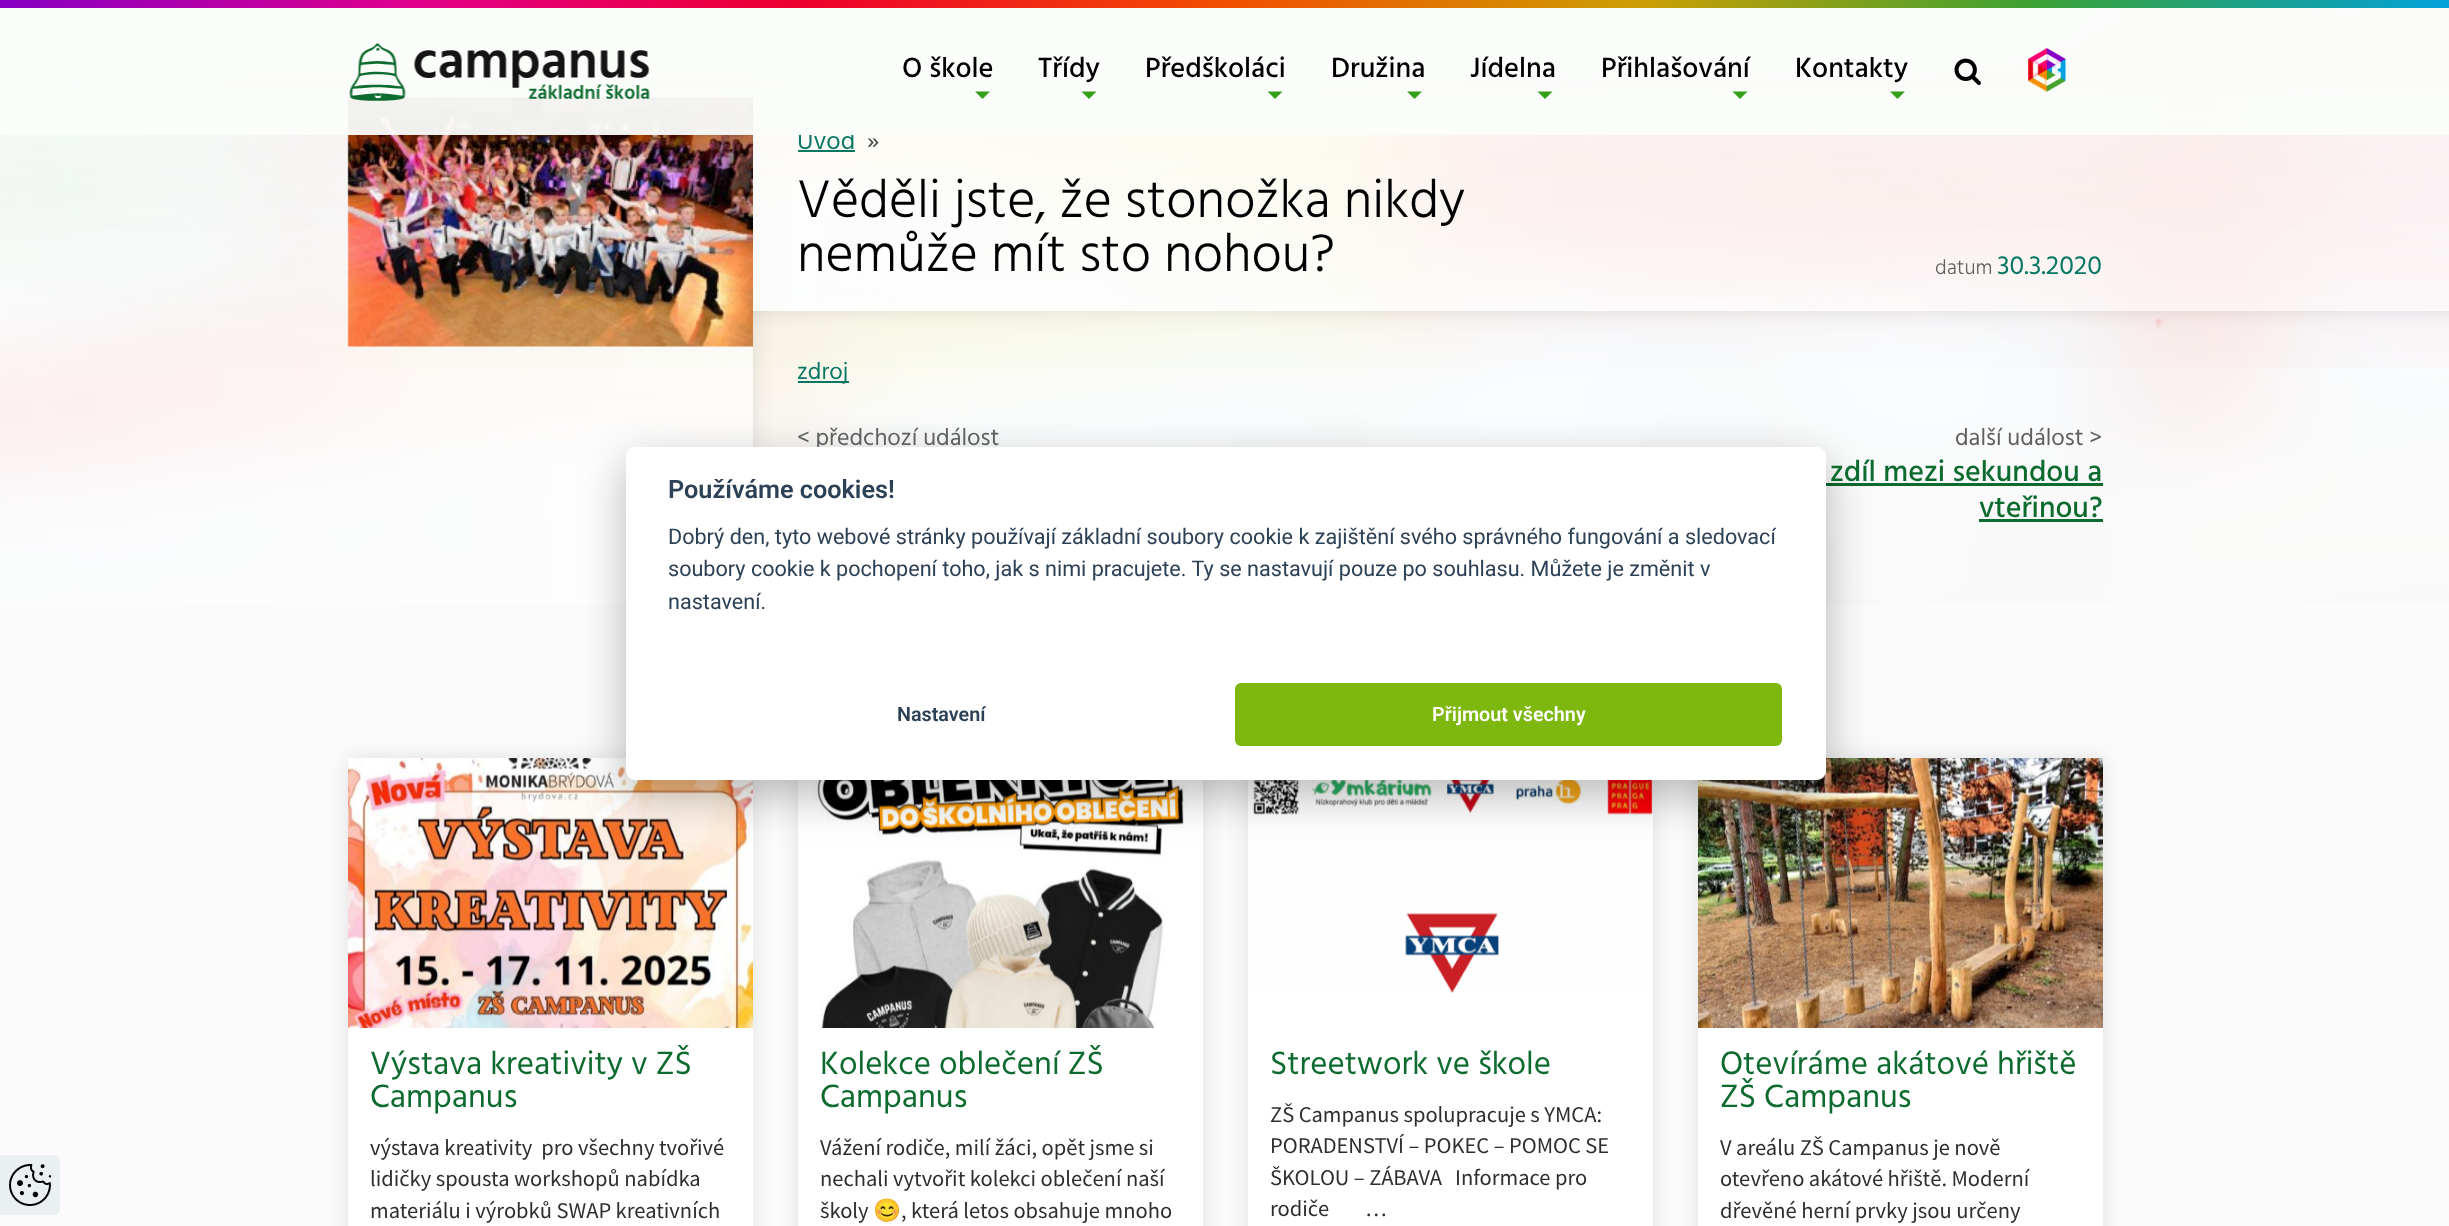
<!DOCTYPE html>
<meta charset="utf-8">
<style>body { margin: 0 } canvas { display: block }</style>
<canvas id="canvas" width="2449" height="1226"></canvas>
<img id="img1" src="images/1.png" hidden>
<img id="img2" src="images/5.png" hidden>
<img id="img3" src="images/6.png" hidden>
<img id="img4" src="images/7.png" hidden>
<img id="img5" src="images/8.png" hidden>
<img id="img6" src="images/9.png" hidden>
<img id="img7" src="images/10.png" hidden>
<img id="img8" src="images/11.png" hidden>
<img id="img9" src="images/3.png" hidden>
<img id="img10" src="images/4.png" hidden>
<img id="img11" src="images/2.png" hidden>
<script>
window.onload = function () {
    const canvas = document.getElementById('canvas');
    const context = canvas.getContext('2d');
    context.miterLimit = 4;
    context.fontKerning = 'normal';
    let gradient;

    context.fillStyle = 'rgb(255, 255, 255)';
    context.fillRect(0, 0, 2449, 1226);
    context.drawImage(document.getElementById('img1'), 0, 8, 2449, 597);
    gradient = context.createLinearGradient(0, 3.8, 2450, 3.7);
    gradient.addColorStop(0, 'rgb(134, 0, 196)');
    gradient.addColorStop(0.17, 'rgb(225, 0, 139)');
    gradient.addColorStop(0.33, 'rgb(238, 0, 44)');
    gradient.addColorStop(0.5, 'rgb(242, 78, 1)');
    gradient.addColorStop(0.67, 'rgb(204, 159, 3)');
    gradient.addColorStop(0.83, 'rgb(60, 162, 51)');
    gradient.addColorStop(1, 'rgb(2, 162, 219)');
    context.fillStyle = gradient;
    context.fillRect(0, 0, 2449, 8);
    context.save();
    context.beginPath();
    context.moveTo(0, 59);
    context.lineTo(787, 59);
    context.lineTo(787, 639);
    context.lineTo(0, 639);
    context.closePath();
    context.moveTo(-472, 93);
    context.lineTo(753, 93);
    context.lineTo(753, 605);
    context.lineTo(-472, 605);
    context.closePath();
    context.clip('evenodd');
    context.fillStyle = 'rgba(0, 0, 0, 0.1)';
    context.filter = 'blur(11px)';
    context.beginPath();
    context.rect(-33, 93, 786, 512);
    context.fill();
    context.filter = 'none';
    context.restore();
    gradient = context.createLinearGradient(-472, 349, 753, 349);
    gradient.addColorStop(0, 'rgba(255, 255, 255, 0)');
    gradient.addColorStop(1, 'rgba(255, 255, 255, 0.7)');
    context.fillStyle = gradient;
    context.fillRect(0, 93, 753, 512);
    context.save();
    context.beginPath();
    context.moveTo(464, 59);
    context.lineTo(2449, 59);
    context.lineTo(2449, 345);
    context.lineTo(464, 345);
    context.closePath();
    context.moveTo(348, 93);
    context.lineTo(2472, 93);
    context.lineTo(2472, 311);
    context.lineTo(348, 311);
    context.closePath();
    context.clip('evenodd');
    context.fillStyle = 'rgba(0, 0, 0, 0.1)';
    context.filter = 'blur(11px)';
    context.beginPath();
    context.rect(498, 93, 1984, 218);
    context.fill();
    context.filter = 'none';
    context.restore();
    gradient = context.createLinearGradient(348, 202, 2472, 202);
    gradient.addColorStop(0, 'rgba(255, 255, 255, 0)');
    gradient.addColorStop(0.21, 'rgb(255, 255, 255)');
    gradient.addColorStop(1, 'rgba(255, 255, 255, 0.5)');
    context.fillStyle = gradient;
    context.fillRect(482, 93, 1967, 218);
    context.drawImage(document.getElementById('img2'), 0, 8, 2449, 360);
    context.drawImage(document.getElementById('img3'), 347, 97, 406, 250);
    context.fillStyle = 'rgb(8, 119, 99)';
    context.fillRect(798, 150, 57, 2);
    context.fillRect(798, 381, 51, 2);
    context.fillStyle = 'rgb(13, 107, 47)';
    context.fillRect(1826, 483, 277, 3);
    context.fillRect(1979, 519, 124, 3);
    context.fillStyle = 'rgb(251, 251, 251)';
    context.fillRect(0, 605, 2449, 621);
    context.fillStyle = 'rgba(0, 0, 0, 0.1)';
    context.filter = 'blur(11px)';
    context.beginPath();
    context.rect(348, 758, 405, 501);
    context.fill();
    context.filter = 'none';
    context.fillStyle = 'rgb(255, 255, 255)';
    context.fillRect(348, 1028, 405, 198);
    context.drawImage(document.getElementById('img4'), 348, 758, 405, 270);
    context.fillStyle = 'rgba(0, 0, 0, 0.1)';
    context.filter = 'blur(11px)';
    context.beginPath();
    context.rect(798, 758, 405, 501);
    context.fill();
    context.filter = 'none';
    context.fillStyle = 'rgb(255, 255, 255)';
    context.fillRect(798, 780, 405, 446);
    context.drawImage(document.getElementById('img5'), 813, 780, 373, 248);
    context.fillStyle = 'rgba(0, 0, 0, 0.1)';
    context.filter = 'blur(11px)';
    context.beginPath();
    context.rect(1248, 758, 405, 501);
    context.fill();
    context.filter = 'none';
    context.fillStyle = 'rgb(255, 255, 255)';
    context.fillRect(1248, 780, 405, 446);
    context.drawImage(document.getElementById('img6'), 1253, 780, 400, 213);
    context.fillStyle = 'rgba(0, 0, 0, 0.1)';
    context.filter = 'blur(11px)';
    context.beginPath();
    context.rect(1698, 758, 405, 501);
    context.fill();
    context.filter = 'none';
    context.fillStyle = 'rgb(255, 255, 255)';
    context.fillRect(1698, 1028, 405, 198);
    context.drawImage(document.getElementById('img7'), 1698, 758, 405, 270);
    context.fillStyle = 'rgba(2, 2, 3, 0.28)';
    context.filter = 'blur(22.5px)';
    context.beginPath();
    context.roundRect(626, 462, 1200, 333, 9);
    context.fill();
    context.filter = 'none';
    context.fillStyle = 'rgb(234, 239, 242)';
    context.beginPath();
    context.roundRect(0, 1155, 60, 60, [0, 6, 6, 0]);
    context.fill();
    context.drawImage(document.getElementById('img8'), 9, 1164, 42, 42);
    context.font = '25.5px Hind';
    context.fillStyle = 'rgb(8, 119, 99)';
    context.fillText('Úvod', 797, 149);
    context.fillStyle = 'rgba(251, 253, 251, 0.95)';
    context.fillRect(0, 8, 2449, 127);
    context.drawImage(document.getElementById('img9'), 1954, 58, 27, 27);
    context.fillStyle = 'rgb(51, 158, 23)';
    context.beginPath();
    context.moveTo(1890, 91.5);
    context.lineTo(1905, 91.5);
    context.lineTo(1897.5, 99);
    context.closePath();
    context.fill();
    context.font = '500 28.5px Hind';
    context.fillStyle = 'rgb(0, 0, 0)';
    context.fillText('Kontakty', 1795, 77);
    context.fillStyle = 'rgb(51, 158, 23)';
    context.beginPath();
    context.moveTo(1732.5, 91.5);
    context.lineTo(1747.5, 91.5);
    context.lineTo(1740, 99);
    context.closePath();
    context.fill();
    context.fillStyle = 'rgb(0, 0, 0)';
    context.fillText('Přihlašování', 1601, 77);
    context.fillStyle = 'rgb(51, 158, 23)';
    context.beginPath();
    context.moveTo(1537.5, 91.5);
    context.lineTo(1552.5, 91.5);
    context.lineTo(1545, 99);
    context.closePath();
    context.fill();
    context.fillStyle = 'rgb(0, 0, 0)';
    context.fillText('Jídelna', 1470, 77);
    context.fillStyle = 'rgb(51, 158, 23)';
    context.beginPath();
    context.moveTo(1407, 91.5);
    context.lineTo(1422, 91.5);
    context.lineTo(1414.5, 99);
    context.closePath();
    context.fill();
    context.fillStyle = 'rgb(0, 0, 0)';
    context.fillText('Družina', 1331, 77);
    context.fillStyle = 'rgb(51, 158, 23)';
    context.beginPath();
    context.moveTo(1267.5, 91.5);
    context.lineTo(1282.5, 91.5);
    context.lineTo(1275, 99);
    context.closePath();
    context.fill();
    context.fillStyle = 'rgb(0, 0, 0)';
    context.fillText('Předškoláci', 1145, 77);
    context.fillStyle = 'rgb(51, 158, 23)';
    context.beginPath();
    context.moveTo(1081.5, 91.5);
    context.lineTo(1096.5, 91.5);
    context.lineTo(1089, 99);
    context.closePath();
    context.fill();
    context.fillStyle = 'rgb(0, 0, 0)';
    context.fillText('Třídy', 1038, 77);
    context.fillStyle = 'rgb(51, 158, 23)';
    context.beginPath();
    context.moveTo(975, 91.5);
    context.lineTo(990, 91.5);
    context.lineTo(982.5, 99);
    context.closePath();
    context.fill();
    context.fillStyle = 'rgb(0, 0, 0)';
    context.fillText('O škole', 902, 77);
    context.drawImage(document.getElementById('img10'), 2028, 48, 38, 44);
    context.drawImage(document.getElementById('img11'), 349, 43, 301, 58);
    context.font = '25.5px Hind';
    context.fillStyle = 'rgb(70, 74, 76)';
    context.fillText('»', 867, 149);
    context.font = '300 54px Hind';
    context.fillStyle = 'rgb(0, 0, 0)';
    context.fillText('Věděli jste, že stonožka nikdy', 797, 217);
    context.fillText('nemůže mít sto nohou?', 797, 271);
    context.font = '300 21px Hind';
    context.fillStyle = 'rgb(95, 95, 95)';
    context.fillText('datum', 1935, 274);
    context.font = '27px Hind';
    context.fillStyle = 'rgb(8, 119, 99)';
    context.fillText('30.3.2020', 1997, 274);
    context.font = '24px Hind';
    context.fillText('zdroj', 797, 379);
    context.fillStyle = 'rgb(95, 95, 95)';
    context.fillText('< předchozí událost', 797, 445);
    context.fillText('další událost >', 1955, 445);
    context.font = '500 30px Hind';
    context.fillStyle = 'rgb(13, 107, 47)';
    context.fillText('zdíl mezi sekundou a', 1830, 481);
    context.fillText('vteřinou?', 1979, 517);
    context.font = '33px Hind';
    context.fillText('Výstava kreativity v ZŠ', 370, 1074);
    context.fillText('Campanus', 370, 1107);
    context.font = '22.5px Source Sans Pro';
    context.fillStyle = 'rgb(46, 46, 46)';
    context.fillText('výstava kreativity  pro všechny tvořivé', 370, 1155);
    context.fillText('lidičky spousta workshopů nabídka', 370, 1186);
    context.fillText('materiálu i výrobků SWAP kreativních', 370, 1218);
    context.font = '33px Hind';
    context.fillStyle = 'rgb(13, 107, 47)';
    context.fillText('Kolekce oblečení ZŠ', 820, 1074);
    context.fillText('Campanus', 820, 1107);
    context.font = '22.5px Source Sans Pro';
    context.fillStyle = 'rgb(46, 46, 46)';
    context.fillText('Vážení rodiče, milí žáci, opět jsme si', 820, 1155);
    context.fillText('nechali vytvořit kolekci oblečení naší', 820, 1186);
    context.fillText('školy', 820, 1218);
    context.font = '22.5px Noto Color Emoji';
    context.fillText('😊', 873, 1218);
    context.font = '22.5px Source Sans Pro';
    context.fillText(', která letos obsahuje mnoho', 901, 1218);
    context.font = '33px Hind';
    context.fillStyle = 'rgb(13, 107, 47)';
    context.fillText('Streetwork ve škole', 1270, 1074);
    context.font = '22.5px Source Sans Pro';
    context.fillStyle = 'rgb(46, 46, 46)';
    context.fillText('ZŠ Campanus spolupracuje s YMCA:', 1270, 1122);
    context.fillText('PORADENSTVÍ – POKEC – POMOC SE', 1270, 1153);
    context.fillText('ŠKOLOU – ZÁBAVA', 1270, 1185);
    context.fillText('Informace pro', 1455, 1185);
    context.fillText('rodiče        …', 1270, 1216);
    context.font = '33px Hind';
    context.fillStyle = 'rgb(13, 107, 47)';
    context.fillText('Otevíráme akátové hřiště', 1720, 1074);
    context.fillText('ZŠ Campanus', 1720, 1107);
    context.font = '22.5px Source Sans Pro';
    context.fillStyle = 'rgb(46, 46, 46)';
    context.fillText('V areálu ZŠ Campanus je nově', 1720, 1155);
    context.fillText('otevřeno akátové hřiště. Moderní', 1720, 1186);
    context.fillText('dřevěné herní prvky jsou určeny', 1720, 1218);
    context.fillStyle = 'rgb(255, 255, 255)';
    context.beginPath();
    context.roundRect(626, 447, 1200, 333, 9);
    context.fill();
    context.font = '600 25.25px Roboto';
    context.fillStyle = 'rgb(45, 65, 86)';
    context.fillText('Používáme cookies!', 668, 498);
    context.font = '21.6px Roboto';
    context.fillText('Dobrý den, tyto webové stránky používají základní soubory cookie k zajištění svého správného fungování a sledovací', 668, 544);
    context.fillText('soubory cookie k pochopení toho, jak s nimi pracujete. Ty se nastavují pouze po souhlasu. Můžete je změnit v', 668, 576);
    context.fillText('nastavení.', 668, 609);
    context.font = '600 19.75px Roboto';
    context.fillText('Nastavení', 897, 721);
    context.fillStyle = 'rgb(126, 184, 14)';
    context.beginPath();
    context.roundRect(1235, 683, 547, 63, 6);
    context.fill();
    context.fillStyle = 'rgb(255, 255, 255)';
    context.fillText('Přijmout všechny', 1432, 721);
};
</script>
